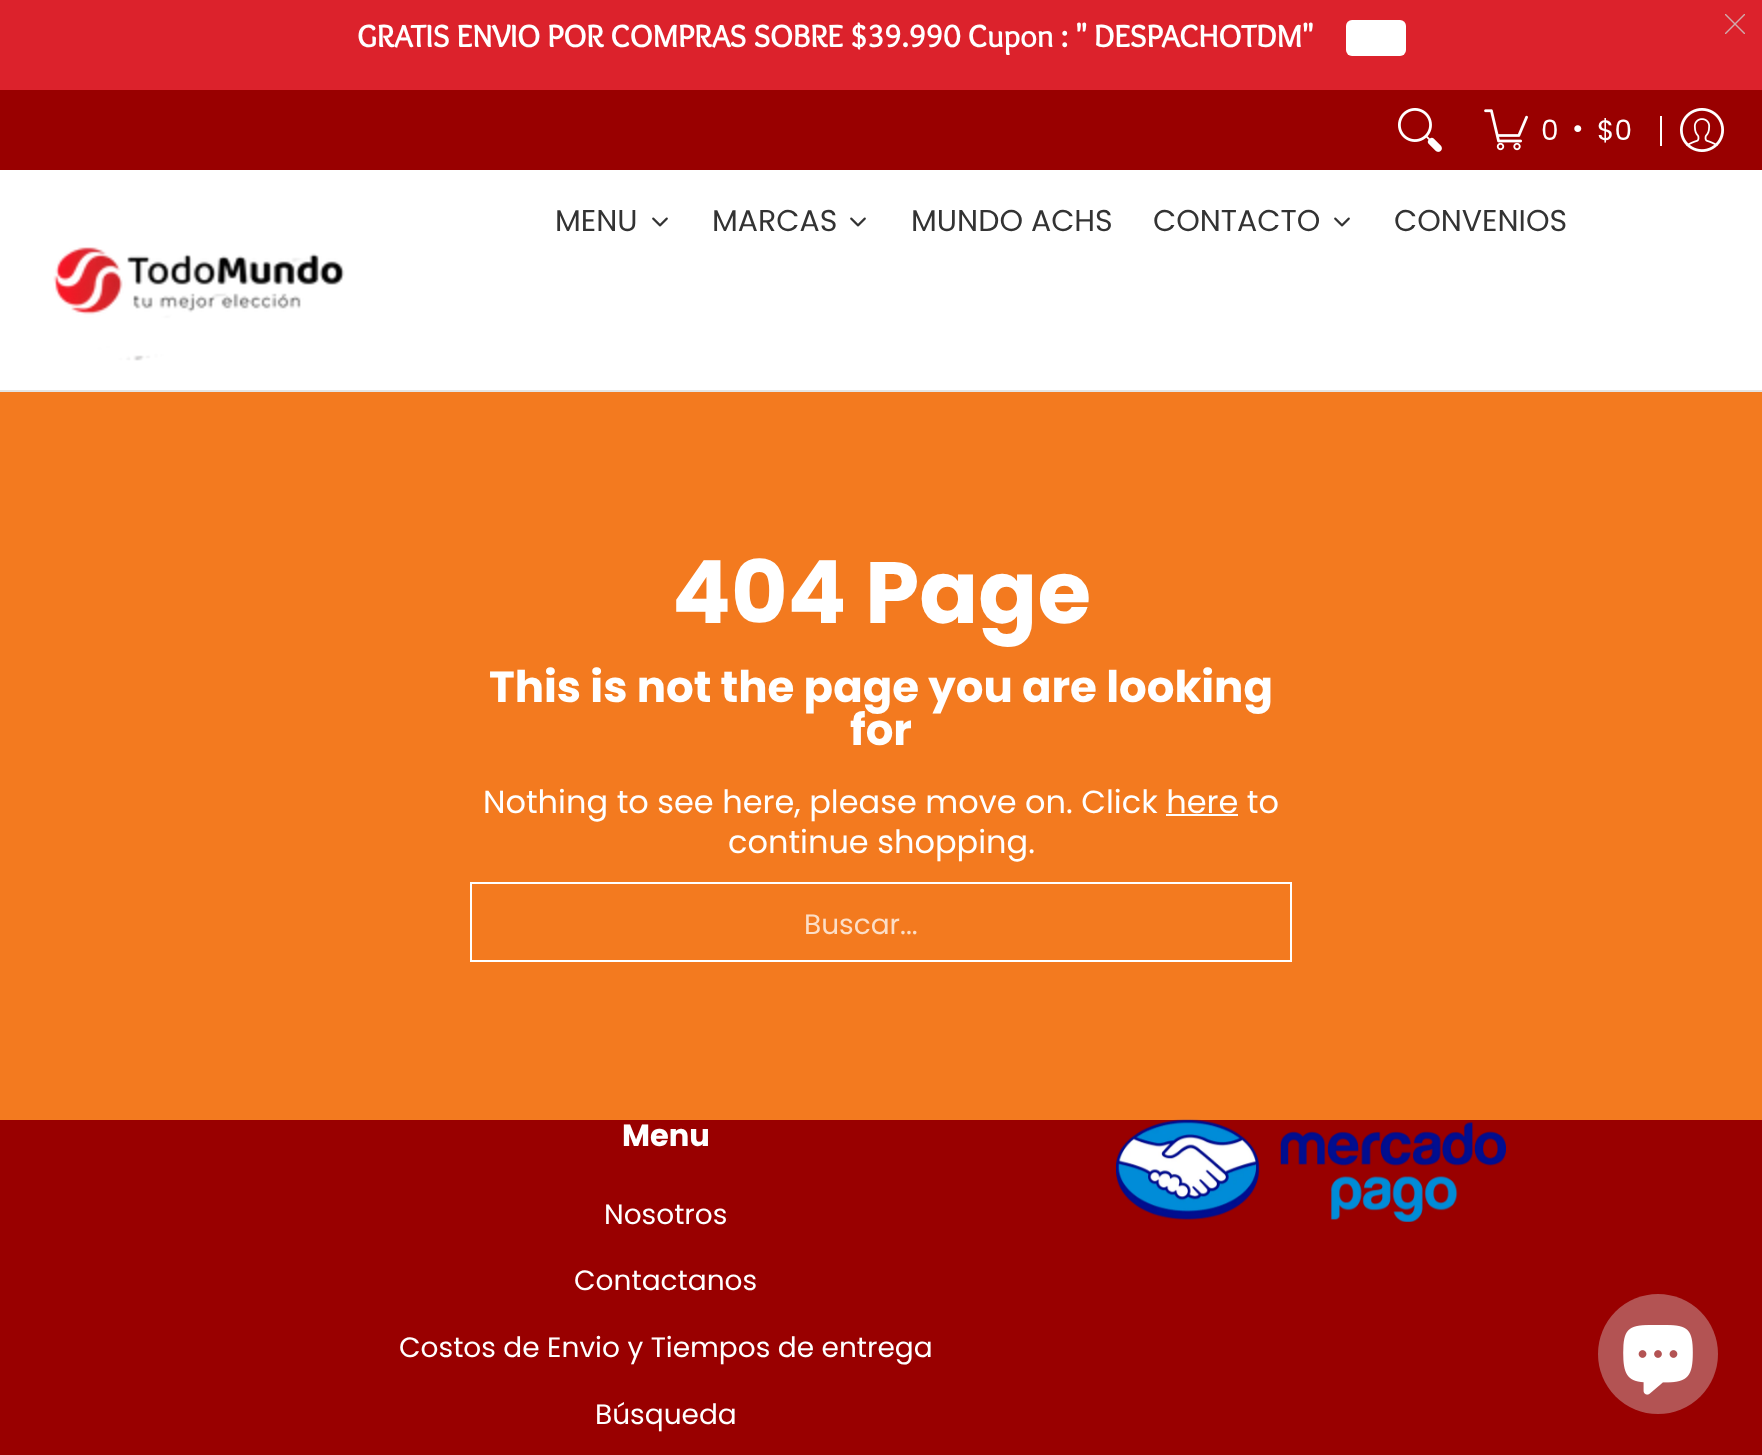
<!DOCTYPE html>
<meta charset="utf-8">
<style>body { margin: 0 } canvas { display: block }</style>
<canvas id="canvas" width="1762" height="1455"></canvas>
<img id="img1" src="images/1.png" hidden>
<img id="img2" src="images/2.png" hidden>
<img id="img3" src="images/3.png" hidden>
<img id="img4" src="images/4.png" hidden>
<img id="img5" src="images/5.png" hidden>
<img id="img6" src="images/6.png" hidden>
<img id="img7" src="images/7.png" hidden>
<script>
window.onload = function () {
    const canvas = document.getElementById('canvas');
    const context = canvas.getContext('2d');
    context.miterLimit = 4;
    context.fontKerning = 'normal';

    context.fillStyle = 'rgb(255, 255, 255)';
    context.fillRect(0, 0, 1762, 1455);
    context.fillStyle = 'rgb(220, 34, 44)';
    context.fillRect(0, 0, 1762, 90);
    context.fillStyle = 'rgb(255, 255, 255)';
    context.beginPath();
    context.roundRect(1346, 20, 60, 36, 6);
    context.fill();
    context.fillStyle = 'rgb(207, 170, 172)';
    context.beginPath();
    context.moveTo(1725, 14);
    context.lineTo(1726, 14);
    context.lineTo(1745, 33);
    context.lineTo(1745, 34);
    context.lineTo(1744, 34);
    context.lineTo(1725, 15);
    context.closePath();
    context.fill();
    context.beginPath();
    context.moveTo(1745, 14);
    context.lineTo(1745, 15);
    context.lineTo(1726, 34);
    context.lineTo(1725, 34);
    context.lineTo(1725, 33);
    context.lineTo(1744, 14);
    context.closePath();
    context.fill();
    context.fillStyle = 'rgb(153, 0, 0)';
    context.fillRect(0, 90, 1762, 80);
    context.drawImage(document.getElementById('img1'), 1398, 108, 44, 44);
    context.drawImage(document.getElementById('img2'), 1484, 109, 44, 42);
    context.fillStyle = 'rgb(255, 255, 255)';
    context.fillRect(1660, 116, 2, 30);
    context.drawImage(document.getElementById('img3'), 1680, 108, 44, 44);
    context.fillStyle = 'rgb(228, 228, 228)';
    context.fillRect(0, 390, 1762, 2);
    context.drawImage(document.getElementById('img4'), 652, 217, 16, 10);
    context.drawImage(document.getElementById('img4'), 850, 217, 16, 10);
    context.drawImage(document.getElementById('img4'), 1334, 217, 16, 10);
    context.drawImage(document.getElementById('img5'), 53, 247, 292, 114);
    context.fillStyle = 'rgb(243, 122, 31)';
    context.fillRect(0, 392, 1762, 728);
    context.fillStyle = 'rgb(255, 255, 255)';
    context.fillRect(1166, 814, 72, 2);
    context.strokeStyle = 'rgb(255, 255, 255)';
    context.lineWidth = 2;
    context.strokeRect(471, 883, 820, 78);
    context.fillStyle = 'rgb(153, 0, 0)';
    context.fillRect(0, 1120, 1762, 335);
    context.drawImage(document.getElementById('img6'), 1116, 1119, 390, 103);
    context.fillStyle = 'rgb(179, 83, 83)';
    context.beginPath();
    context.arc(1658, 1354, 60, 0, 2 * Math.PI);
    context.fill();
    context.drawImage(document.getElementById('img7'), 1623, 1325, 70, 70);
    context.font = 'bold 32px Overlock';
    context.fillStyle = 'rgb(255, 255, 255)';
    context.fillText('GRATIS ENVIO POR COMPRAS SOBRE $39.990 Cupon : " DESPACHOTDM"', 357, 47);
    context.font = '28px Poppins';
    context.fillText('0', 1541, 140);
    context.fillText('•', 1572, 138);
    context.fillText('$0', 1597, 140);
    context.font = '30px Poppins';
    context.fillStyle = 'rgb(51, 51, 51)';
    context.fillText('MENU', 555, 231);
    context.fillText('MARCAS', 712, 231);
    context.fillText('MUNDO ACHS', 911, 231);
    context.fillText('CONTACTO', 1153, 231);
    context.fillText('CONVENIOS', 1394, 231);
    context.font = 'bold 87px Poppins';
    context.fillStyle = 'rgb(255, 255, 255)';
    context.fillText('404 Page', 672, 623);
    context.font = 'bold 43.5px Poppins';
    context.fillText('This is not the page you are looking', 489, 702);
    context.fillText('for', 850, 745);
    context.font = '32px Poppins';
    context.fillText('Nothing to see here, please move on. Click here to', 483, 813);
    context.fillText('continue shopping.', 728, 853);
    context.font = '28px Poppins';
    context.fillStyle = 'rgb(252, 222, 199)';
    context.fillText('Buscar...', 804, 934);
    context.font = 'bold 30.5px Poppins';
    context.fillStyle = 'rgb(255, 255, 255)';
    context.fillText('Menu', 622, 1146);
    context.font = '28px Poppins';
    context.fillText('Nosotros', 604, 1224);
    context.fillText('Contactanos', 574, 1290);
    context.fillText('Costos de Envio y Tiempos de entrega', 399, 1357);
    context.fillText('Búsqueda', 595, 1424);
};
</script>
